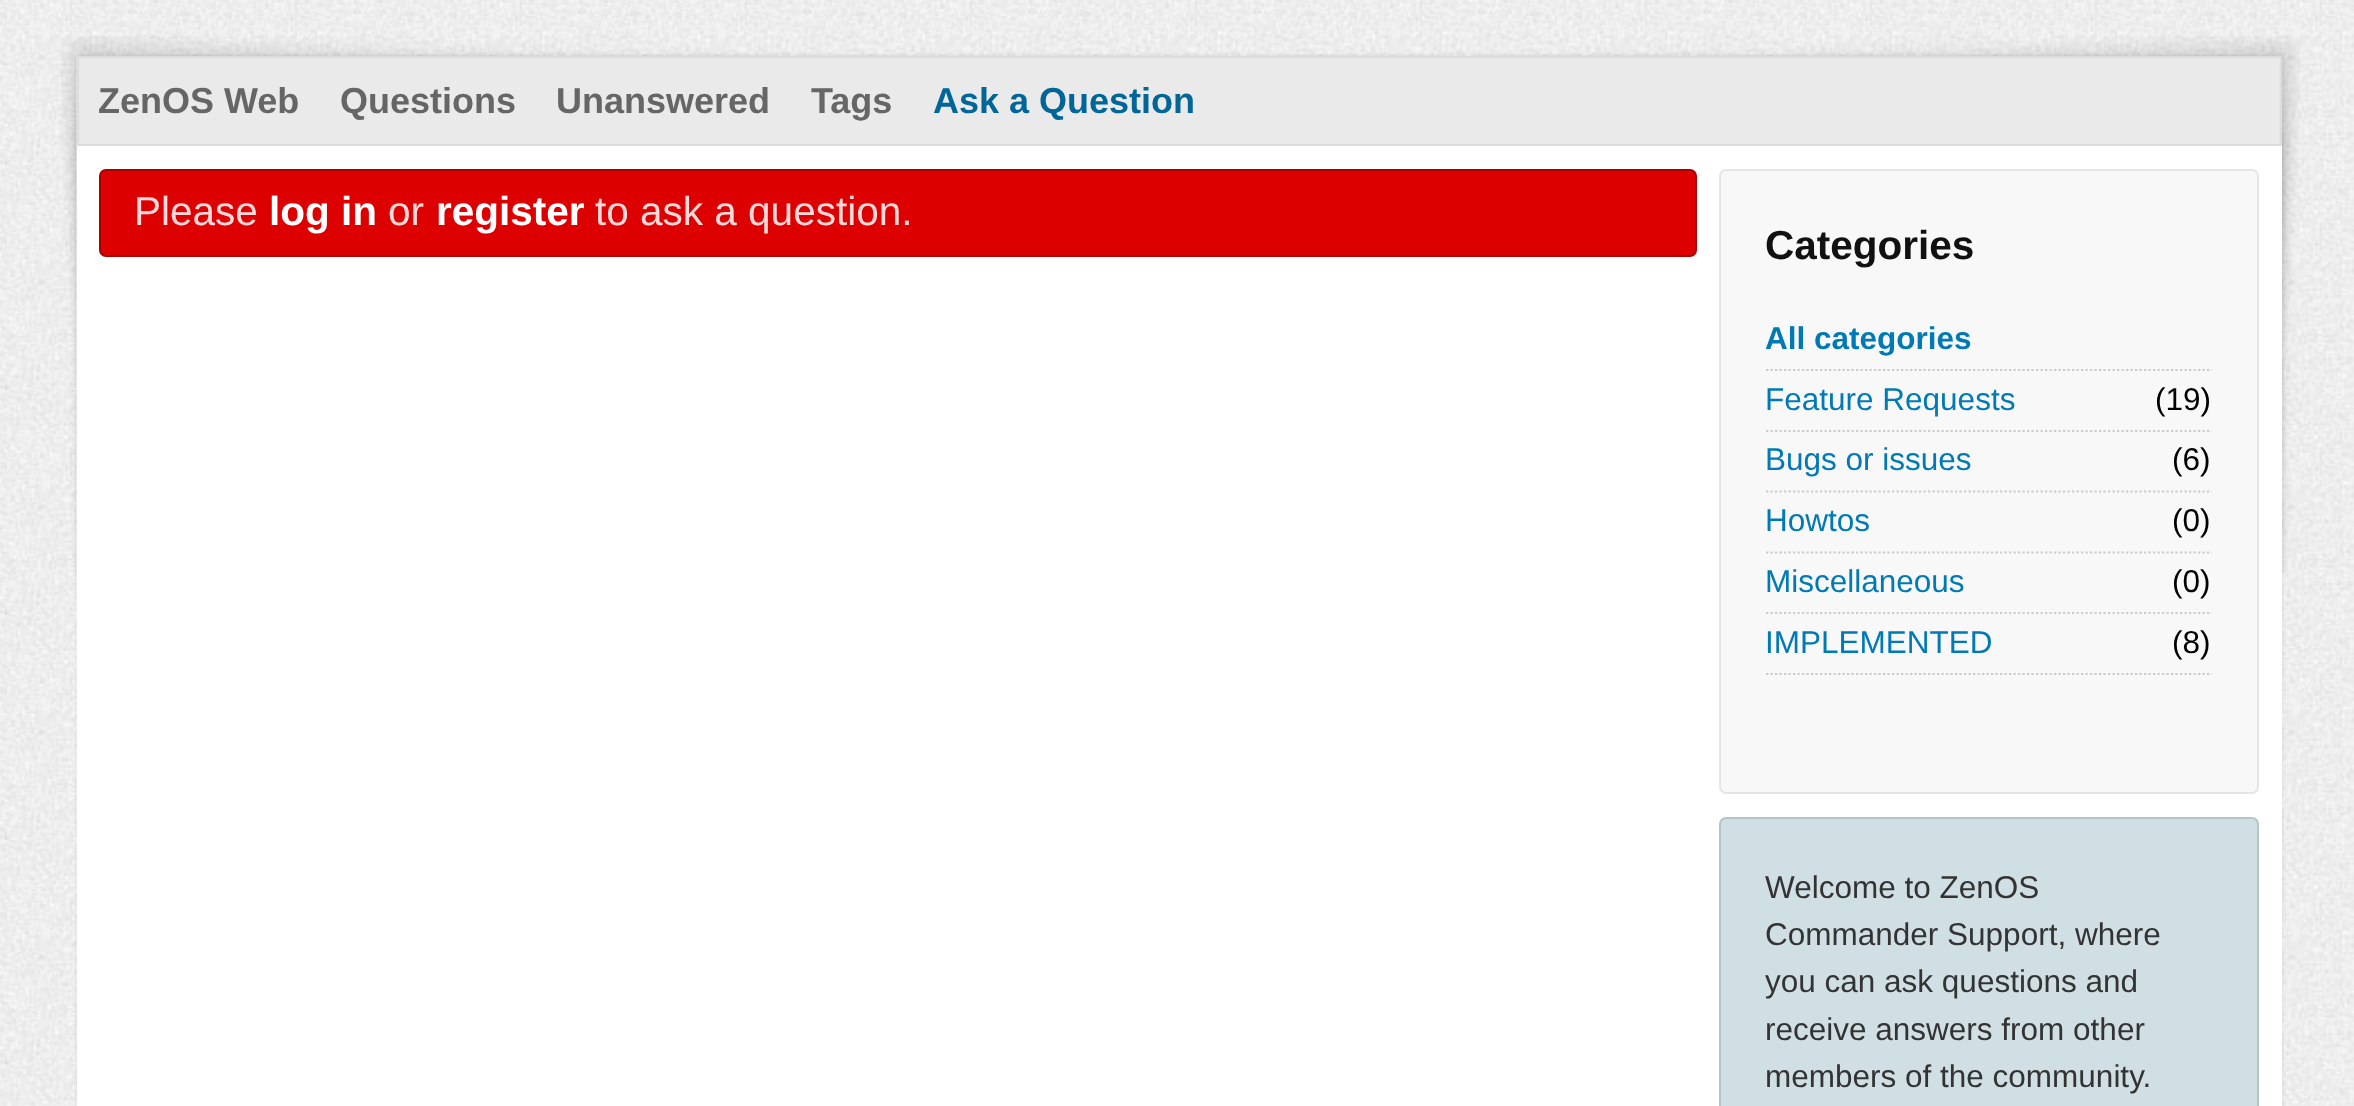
<!DOCTYPE html>
<meta charset="utf-8">
<style>body { margin: 0 } canvas { display: block }</style>
<canvas id="canvas" width="2354" height="1106"></canvas>
<img id="img1" src="images/1.png" hidden>
<img id="img2" src="images/2.png" hidden>
<script>
window.onload = function () {
    const canvas = document.getElementById('canvas');
    const context = canvas.getContext('2d');
    context.miterLimit = 4;
    context.fontKerning = 'normal';

    context.fillStyle = 'rgb(255, 255, 255)';
    context.fillRect(0, 0, 2354, 1106);
    context.drawImage(document.getElementById('img1'), 0, 0, 2354, 1106);
    context.drawImage(document.getElementById('img2'), 61, 36, 2239, 981);
    context.fillStyle = 'rgba(0, 0, 0, 0.1)';
    context.filter = 'blur(2px)';
    context.beginPath();
    context.rect(77, 56, 2205, 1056);
    context.fill();
    context.filter = 'none';
    context.fillStyle = 'rgb(255, 255, 255)';
    context.fillRect(77, 146, 2205, 960);
    context.fillStyle = 'rgb(234, 234, 234)';
    context.fillRect(80, 59, 2199, 85);
    context.strokeStyle = 'rgb(221, 221, 221)';
    context.lineWidth = 2;
    context.strokeRect(78, 57, 2203, 88);
    context.fillStyle = 'rgb(221, 0, 0)';
    context.beginPath();
    context.roundRect(100, 170, 1596, 86, 6);
    context.fill();
    context.strokeStyle = 'rgb(170, 0, 0)';
    context.stroke();
    context.fillStyle = 'rgb(248, 248, 248)';
    context.beginPath();
    context.roundRect(1720, 170, 538, 623, 6);
    context.fill();
    context.strokeStyle = 'rgb(229, 229, 229)';
    context.stroke();
    context.beginPath();
    context.moveTo(1766, 370);
    context.lineTo(2212, 370);
    context.strokeStyle = 'rgb(204, 204, 204)';
    context.lineWidth = 2.2;
    context.setLineDash([2.25, 2.25]);
    context.stroke();
    context.beginPath();
    context.moveTo(1766, 431);
    context.lineTo(2212, 431);
    context.stroke();
    context.beginPath();
    context.moveTo(1766, 491.5);
    context.lineTo(2212, 491.5);
    context.stroke();
    context.beginPath();
    context.moveTo(1766, 552.5);
    context.lineTo(2212, 552.5);
    context.stroke();
    context.beginPath();
    context.moveTo(1766, 613);
    context.lineTo(2212, 613);
    context.stroke();
    context.beginPath();
    context.moveTo(1766, 674);
    context.lineTo(2212, 674);
    context.stroke();
    context.fillStyle = 'rgb(208, 223, 228)';
    context.beginPath();
    context.roundRect(1720, 818, 538, 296, 6);
    context.fill();
    context.strokeStyle = 'rgb(182, 196, 200)';
    context.lineWidth = 2;
    context.setLineDash([]);
    context.stroke();
    context.font = 'bold 36px Liberation Sans';
    context.fillStyle = 'rgb(102, 102, 102)';
    context.fillText('ZenOS Web', 98, 113);
    context.fillText('Questions', 340, 113);
    context.fillText('Unanswered', 556, 113);
    context.fillText('Tags', 811, 113);
    context.fillStyle = 'rgb(0, 102, 153)';
    context.fillText('Ask a Question', 933, 113);
    context.font = '40.5px Liberation Sans';
    context.fillStyle = 'rgb(255, 217, 217)';
    context.fillText('Please', 134, 225);
    context.font = 'bold 40.5px Liberation Sans';
    context.fillStyle = 'rgb(255, 255, 255)';
    context.fillText('log in', 269, 225);
    context.font = '40.5px Liberation Sans';
    context.fillStyle = 'rgb(255, 217, 217)';
    context.fillText('or', 388, 225);
    context.font = 'bold 40.5px Liberation Sans';
    context.fillStyle = 'rgb(255, 255, 255)';
    context.fillText('register', 436, 225);
    context.font = '40.5px Liberation Sans';
    context.fillStyle = 'rgb(255, 217, 217)';
    context.fillText('to ask a question.', 595, 225);
    context.font = 'bold 40.5px Liberation Sans';
    context.fillStyle = 'rgb(17, 17, 17)';
    context.fillText('Categories', 1765, 259);
    context.font = 'bold 31.5px Liberation Sans';
    context.fillStyle = 'rgb(1, 121, 181)';
    context.fillText('All categories', 1765, 349);
    context.font = '31.5px Liberation Sans';
    context.fillText('Feature Requests', 1765, 410);
    context.fillStyle = 'rgb(0, 0, 0)';
    context.fillText('(19)', 2155, 410);
    context.fillStyle = 'rgb(1, 121, 181)';
    context.fillText('Bugs or issues', 1765, 470);
    context.fillStyle = 'rgb(0, 0, 0)';
    context.fillText('(6)', 2172, 470);
    context.fillStyle = 'rgb(1, 121, 181)';
    context.fillText('Howtos', 1765, 531);
    context.fillStyle = 'rgb(0, 0, 0)';
    context.fillText('(0)', 2172, 531);
    context.fillStyle = 'rgb(1, 121, 181)';
    context.fillText('Miscellaneous', 1765, 592);
    context.fillStyle = 'rgb(0, 0, 0)';
    context.fillText('(0)', 2172, 592);
    context.fillStyle = 'rgb(1, 121, 181)';
    context.fillText('IMPLEMENTED', 1765, 653);
    context.fillStyle = 'rgb(0, 0, 0)';
    context.fillText('(8)', 2172, 653);
    context.fillStyle = 'rgb(51, 51, 51)';
    context.fillText('Welcome to ZenOS', 1765, 898);
    context.fillText('Commander Support, where', 1765, 945);
    context.fillText('you can ask questions and', 1765, 992);
    context.fillText('receive answers from other', 1765, 1040);
    context.fillText('members of the community.', 1765, 1087);
};
</script>
